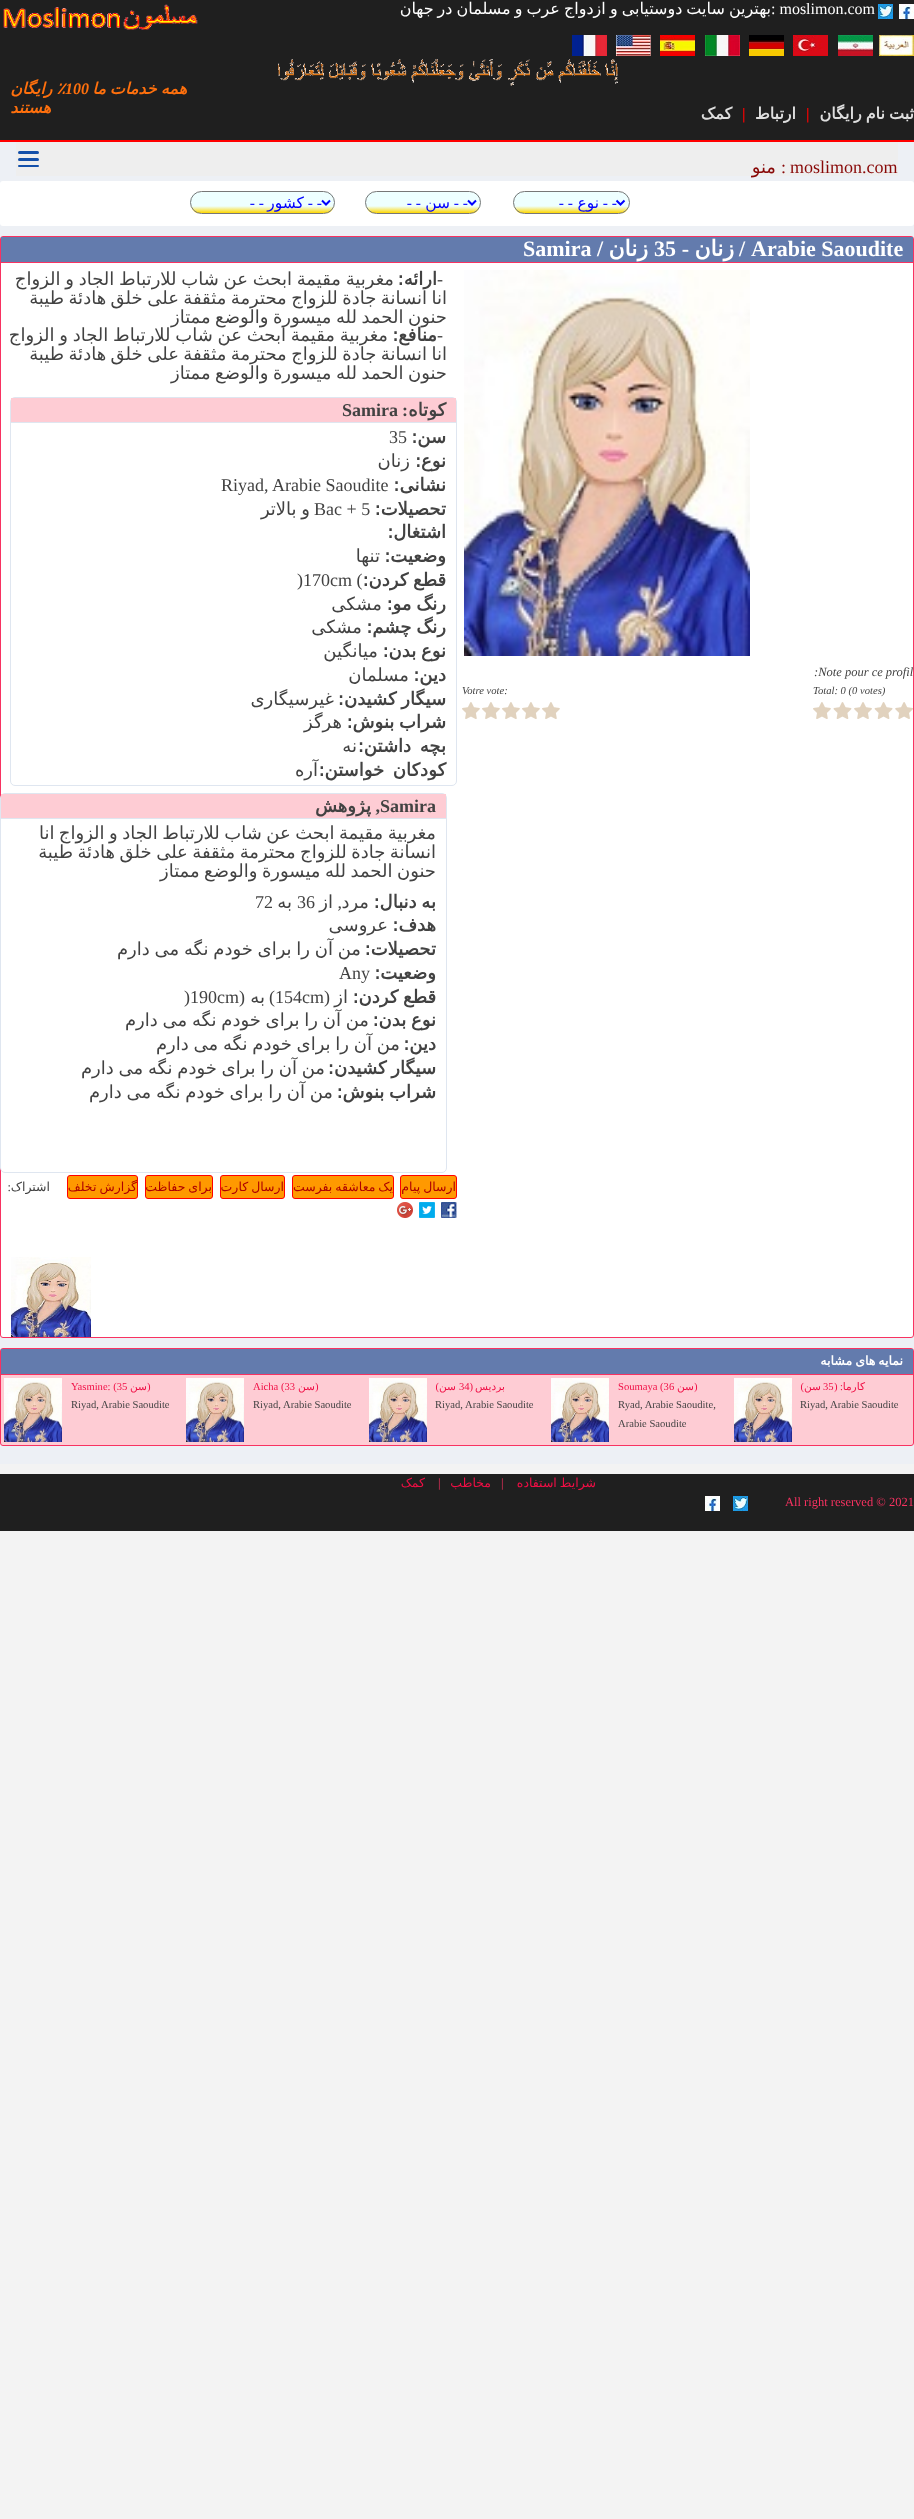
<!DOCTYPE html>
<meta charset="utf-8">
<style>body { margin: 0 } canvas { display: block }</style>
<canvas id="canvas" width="914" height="2519"></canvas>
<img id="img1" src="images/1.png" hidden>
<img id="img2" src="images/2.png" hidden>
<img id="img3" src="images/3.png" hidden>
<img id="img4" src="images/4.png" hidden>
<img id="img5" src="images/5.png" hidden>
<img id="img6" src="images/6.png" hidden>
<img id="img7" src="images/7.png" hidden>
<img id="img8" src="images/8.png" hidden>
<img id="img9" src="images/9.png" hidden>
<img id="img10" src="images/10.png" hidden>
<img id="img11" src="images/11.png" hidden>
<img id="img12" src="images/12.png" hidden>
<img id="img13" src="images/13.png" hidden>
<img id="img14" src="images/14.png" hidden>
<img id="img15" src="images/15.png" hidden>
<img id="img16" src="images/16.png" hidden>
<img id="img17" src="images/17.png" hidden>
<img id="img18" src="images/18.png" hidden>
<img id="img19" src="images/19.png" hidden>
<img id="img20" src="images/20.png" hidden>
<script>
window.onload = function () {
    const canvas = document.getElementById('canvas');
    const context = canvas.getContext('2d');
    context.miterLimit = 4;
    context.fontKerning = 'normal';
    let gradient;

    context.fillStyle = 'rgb(243, 243, 243)';
    context.fillRect(0, 0, 914, 2519);
    context.fillStyle = 'rgb(31, 31, 31)';
    context.fillRect(0, 0, 914, 140);
    context.fillStyle = 'rgb(255, 0, 0)';
    context.fillRect(0, 140, 914, 2);
    context.drawImage(document.getElementById('img1'), 899, 4, 15, 15);
    context.drawImage(document.getElementById('img2'), 878, 4, 15, 15);
    context.drawImage(document.getElementById('img3'), 879, 35, 35, 21);
    context.drawImage(document.getElementById('img4'), 838, 35, 35, 21);
    context.drawImage(document.getElementById('img5'), 793, 35, 35, 21);
    context.drawImage(document.getElementById('img6'), 749, 35, 35, 21);
    context.drawImage(document.getElementById('img7'), 705, 35, 35, 21);
    context.drawImage(document.getElementById('img8'), 660, 35, 35, 21);
    context.drawImage(document.getElementById('img9'), 616, 35, 35, 21);
    context.drawImage(document.getElementById('img10'), 572, 35, 35, 21);
    context.drawImage(document.getElementById('img11'), 278, 59, 340, 27);
    context.drawImage(document.getElementById('img12'), 3, 4, 195, 26);
    context.fillStyle = 'rgb(237, 240, 245)';
    context.fillRect(0, 142, 914, 1322);
    context.fillStyle = 'rgb(238, 238, 238)';
    context.fillRect(16, 142, 882, 34);
    context.fillStyle = 'rgb(20, 80, 170)';
    context.beginPath();
    context.roundRect(18, 158, 21, 3, 1.5);
    context.fill();
    context.beginPath();
    context.roundRect(18, 151, 21, 3, 1.5);
    context.fill();
    context.beginPath();
    context.roundRect(18, 165, 21, 2, 1);
    context.fill();
    context.fillStyle = 'rgb(255, 255, 255)';
    context.beginPath();
    context.roundRect(0, 181, 914, 45, 3);
    context.fill();
    context.save();
    context.beginPath();
    context.roundRect(513, 191, 117, 23, 11.5);
    context.clip();
    gradient = context.createLinearGradient(572, 213, 572, 192);
    gradient.addColorStop(0, 'rgb(255, 215, 0)');
    gradient.addColorStop(0.33, 'rgb(238, 255, 255)');
    context.fillStyle = gradient;
    context.fillRect(513, 192, 117, 21);
    context.restore();
    context.beginPath();
    context.roundRect(513.5, 191.5, 116, 22, 11);
    context.strokeStyle = 'rgb(119, 119, 119)';
    context.stroke();
    context.beginPath();
    context.moveTo(616.5, 200.5);
    context.lineTo(620.5, 204.5);
    context.lineTo(624.5, 200.5);
    context.strokeStyle = 'rgb(0, 0, 255)';
    context.lineWidth = 2;
    context.stroke();
    context.save();
    context.beginPath();
    context.roundRect(365, 191, 116, 23, 11.5);
    context.clip();
    gradient = context.createLinearGradient(423, 213, 423, 192);
    gradient.addColorStop(0, 'rgb(255, 215, 0)');
    gradient.addColorStop(0.33, 'rgb(238, 255, 255)');
    context.fillStyle = gradient;
    context.fillRect(365, 192, 116, 21);
    context.restore();
    context.beginPath();
    context.roundRect(365.5, 191.5, 115, 22, 11);
    context.strokeStyle = 'rgb(119, 119, 119)';
    context.lineWidth = 1;
    context.stroke();
    context.beginPath();
    context.moveTo(468, 200.5);
    context.lineTo(472, 204.5);
    context.lineTo(476, 200.5);
    context.strokeStyle = 'rgb(0, 0, 255)';
    context.lineWidth = 2;
    context.stroke();
    context.save();
    context.beginPath();
    context.roundRect(190, 191, 145, 23, 11.5);
    context.clip();
    gradient = context.createLinearGradient(263, 213, 263, 192);
    gradient.addColorStop(0, 'rgb(255, 215, 0)');
    gradient.addColorStop(0.33, 'rgb(238, 255, 255)');
    context.fillStyle = gradient;
    context.fillRect(190, 192, 145, 21);
    context.restore();
    context.beginPath();
    context.roundRect(190.5, 191.5, 144, 22, 11);
    context.strokeStyle = 'rgb(119, 119, 119)';
    context.lineWidth = 1;
    context.stroke();
    context.beginPath();
    context.moveTo(322, 200.5);
    context.lineTo(326, 204.5);
    context.lineTo(330, 200.5);
    context.strokeStyle = 'rgb(0, 0, 255)';
    context.lineWidth = 2;
    context.stroke();
    context.beginPath();
    context.roundRect(0.5, 236.5, 913, 1101, 2.5);
    context.fill();
    context.strokeStyle = 'rgb(248, 50, 97)';
    context.lineWidth = 1;
    context.stroke();
    context.fillStyle = 'rgb(99, 123, 173)';
    context.fillRect(1, 237, 912, 25);
    context.fillStyle = 'rgb(248, 50, 97)';
    context.fillRect(1, 262, 912, 1);
    context.drawImage(document.getElementById('img13'), 464, 270, 286, 386);
    context.drawImage(document.getElementById('img14'), 813, 702, 100, 17);
    context.drawImage(document.getElementById('img15'), 542, 702, 18, 17);
    context.drawImage(document.getElementById('img15'), 522, 702, 18, 17);
    context.drawImage(document.getElementById('img15'), 502, 702, 18, 17);
    context.drawImage(document.getElementById('img15'), 482, 702, 18, 17);
    context.drawImage(document.getElementById('img15'), 462, 702, 18, 17);
    context.beginPath();
    context.roundRect(10.5, 397.5, 446, 388, 4.5);
    context.strokeStyle = 'rgb(223, 230, 240)';
    context.stroke();
    context.fillStyle = 'rgb(254, 204, 212)';
    context.fillRect(11, 398, 445, 24);
    context.fillStyle = 'rgb(223, 230, 240)';
    context.fillRect(11, 422, 445, 1);
    context.beginPath();
    context.roundRect(0.5, 793.5, 446, 379, 4.5);
    context.stroke();
    context.fillStyle = 'rgb(254, 204, 212)';
    context.fillRect(1, 794, 445, 24);
    context.fillStyle = 'rgb(223, 230, 240)';
    context.fillRect(1, 818, 445, 1);
    context.fillStyle = 'rgb(255, 153, 0)';
    context.beginPath();
    context.roundRect(400.5, 1175.5, 56, 23, 2.5);
    context.fill();
    context.strokeStyle = 'rgb(255, 0, 0)';
    context.stroke();
    context.beginPath();
    context.roundRect(292.5, 1175.5, 101, 23, 2.5);
    context.fill();
    context.stroke();
    context.beginPath();
    context.roundRect(220.5, 1175.5, 64, 23, 2.5);
    context.fill();
    context.stroke();
    context.beginPath();
    context.roundRect(145.5, 1175.5, 67, 23, 2.5);
    context.fill();
    context.stroke();
    context.beginPath();
    context.roundRect(67.5, 1175.5, 70, 23, 2.5);
    context.fill();
    context.stroke();
    context.drawImage(document.getElementById('img16'), 441, 1202, 16, 16);
    context.drawImage(document.getElementById('img17'), 419, 1202, 16, 16);
    context.drawImage(document.getElementById('img18'), 397, 1202, 16, 16);
    context.drawImage(document.getElementById('img19'), 11, 1257, 80, 80);
    context.fillStyle = 'rgb(254, 204, 212)';
    context.beginPath();
    context.roundRect(0.5, 1348.5, 913, 97, 2.5);
    context.fill();
    context.strokeStyle = 'rgb(248, 50, 97)';
    context.stroke();
    context.fillStyle = 'rgb(99, 123, 173)';
    context.fillRect(1, 1349, 912, 25);
    context.fillStyle = 'rgb(248, 50, 97)';
    context.fillRect(1, 1374, 912, 1);
    context.drawImage(document.getElementById('img20'), 734, 1378, 58, 64);
    context.drawImage(document.getElementById('img20'), 551, 1378, 58, 64);
    context.drawImage(document.getElementById('img20'), 369, 1378, 58, 64);
    context.drawImage(document.getElementById('img20'), 186, 1378, 58, 64);
    context.drawImage(document.getElementById('img20'), 4, 1378, 58, 64);
    context.fillStyle = 'rgb(31, 31, 31)';
    context.fillRect(0, 1474, 914, 57);
    context.drawImage(document.getElementById('img2'), 733, 1496, 15, 15);
    context.drawImage(document.getElementById('img1'), 705, 1496, 15, 15);
    context.wordSpacing = '-1px';
    context.direction = 'rtl';
    context.font = '16px DejaVu Sans';
    context.fillStyle = 'rgb(255, 255, 255)';
    context.fillText('بهترین سایت دوستیابی و ازدواج عرب و مسلمان در جهان', 771, 14);
    context.wordSpacing = '0px';
    context.direction = 'ltr';
    context.font = '16px Liberation Serif';
    context.fillText(': moslimon.com', 771, 14);
    context.wordSpacing = '-1px';
    context.direction = 'rtl';
    context.font = 'bold 16px DejaVu Sans';
    context.fillStyle = 'rgb(222, 222, 222)';
    context.fillText('ثبت نام رایگان', 914, 119);
    context.wordSpacing = '0px';
    context.direction = 'ltr';
    context.font = 'bold 16px Liberation Serif';
    context.fillStyle = 'rgb(255, 0, 0)';
    context.fillText('|', 806, 119);
    context.direction = 'rtl';
    context.font = 'bold 16px DejaVu Sans';
    context.fillStyle = 'rgb(222, 222, 222)';
    context.fillText('ارتباط', 796, 119);
    context.direction = 'ltr';
    context.font = 'bold 16px Liberation Serif';
    context.fillStyle = 'rgb(255, 0, 0)';
    context.fillText('|', 742, 119);
    context.direction = 'rtl';
    context.font = 'bold 16px DejaVu Sans';
    context.fillStyle = 'rgb(222, 222, 222)';
    context.fillText('کمک', 732, 119);
    context.wordSpacing = '-1px';
    context.font = 'italic bold 16px DejaVu Sans';
    context.fillStyle = 'rgb(255, 112, 13)';
    context.fillText('همه خدمات ما', 187, 94);
    context.fillText('٪ رایگان', 65, 94);
    context.wordSpacing = '0px';
    context.direction = 'ltr';
    context.font = 'italic bold 16px Liberation Serif';
    context.fillText('100', 65, 94);
    context.direction = 'rtl';
    context.font = 'italic bold 16px DejaVu Sans';
    context.fillText('هستند', 51, 113);
    context.direction = 'ltr';
    context.font = '18px Liberation Serif';
    context.fillStyle = 'rgb(136, 8, 7)';
    context.fillText('moslimon.com', 790, 173);
    context.direction = 'rtl';
    context.fillText(':', 786, 173);
    context.font = '18px DejaVu Sans';
    context.fillText('منو', 776, 173);
    context.font = '15.5px Liberation Serif';
    context.fillStyle = 'rgb(0, 0, 255)';
    context.fillText('- -', 617, 208);
    context.font = '15.5px DejaVu Sans';
    context.fillText('نوع', 599, 208);
    context.font = '15.5px Liberation Serif';
    context.fillText('- -', 573, 208);
    context.fillText('- -', 468, 208);
    context.font = '15.5px DejaVu Sans';
    context.fillText('سن', 450, 208);
    context.font = '15.5px Liberation Serif';
    context.fillText('- -', 421, 208);
    context.fillText('- -', 322, 208);
    context.font = '15.5px DejaVu Sans';
    context.fillText('کشور', 304, 208);
    context.font = '15.5px Liberation Serif';
    context.fillText('- -', 264, 208);
    context.direction = 'ltr';
    context.font = 'bold 22px Liberation Serif';
    context.fillStyle = 'rgb(255, 255, 255)';
    context.fillText('Arabie Saoudite', 751, 256);
    context.direction = 'rtl';
    context.fillText('/', 745, 256);
    context.font = 'bold 22px DejaVu Sans';
    context.fillText('زنان', 734, 256);
    context.font = 'bold 22px Liberation Serif';
    context.fillText('-', 689, 256);
    context.direction = 'ltr';
    context.fillText('35', 654, 256);
    context.direction = 'rtl';
    context.font = 'bold 22px DejaVu Sans';
    context.fillText('زنان', 648, 256);
    context.font = 'bold 22px Liberation Serif';
    context.fillText('/', 603, 256);
    context.direction = 'ltr';
    context.fillText('Samira', 523, 256);
    context.font = 'italic 12.5px Liberation Serif';
    context.fillStyle = 'rgb(66, 66, 66)';
    context.fillText(':Note pour ce profil', 814, 676);
    context.font = 'italic 10.6px Liberation Serif';
    context.fillText('Total: 0 (0 votes)', 813, 694);
    context.fillText('Votre vote:', 462, 694);
    context.font = '18px Liberation Serif';
    context.fillText('-', 437, 285);
    context.direction = 'rtl';
    context.font = 'bold 18px DejaVu Sans';
    context.fillText('ارائه:', 437, 285);
    context.wordSpacing = '-1px';
    context.font = '18px DejaVu Sans';
    context.fillText('مغربية مقيمة ابحث عن شاب للارتباط الجاد و الزواج', 394, 285);
    context.wordSpacing = '-1.25px';
    context.fillText('انا انسانة جادة للزواج محترمة مثقفة على خلق هادئة طيبة', 447, 304);
    context.fillText('حنون الحمد لله ميسورة والوضع ممتاز', 447, 323);
    context.wordSpacing = '0px';
    context.direction = 'ltr';
    context.font = '18px Liberation Serif';
    context.fillText('-', 437, 341);
    context.direction = 'rtl';
    context.font = 'bold 18px DejaVu Sans';
    context.fillText('منافع:', 437, 341);
    context.wordSpacing = '-1px';
    context.font = '18px DejaVu Sans';
    context.fillText('مغربية مقيمة ابحث عن شاب للارتباط الجاد و الزواج', 388, 341);
    context.wordSpacing = '-1.25px';
    context.fillText('انا انسانة جادة للزواج محترمة مثقفة على خلق هادئة طيبة', 447, 360);
    context.fillText('حنون الحمد لله ميسورة والوضع ممتاز', 447, 379);
    context.wordSpacing = '0px';
    context.font = 'bold 18px DejaVu Sans';
    context.fillText('کوتاه', 446, 416);
    context.font = 'bold 18px Liberation Serif';
    context.fillText(':', 408, 416);
    context.direction = 'ltr';
    context.fillText('Samira', 342, 416);
    context.direction = 'rtl';
    context.font = 'bold 18px DejaVu Sans';
    context.fillText('سن:', 446, 443);
    context.direction = 'ltr';
    context.font = '18px Liberation Serif';
    context.fillText('35', 389, 443);
    context.direction = 'rtl';
    context.font = 'bold 18px DejaVu Sans';
    context.fillText('نوع:', 446, 467);
    context.font = '18px DejaVu Sans';
    context.fillText('زنان', 410, 467);
    context.font = 'bold 18px DejaVu Sans';
    context.fillText('نشانی:', 446, 491);
    context.direction = 'ltr';
    context.font = '18px Liberation Serif';
    context.fillText('Riyad, Arabie Saoudite', 221, 491);
    context.direction = 'rtl';
    context.font = 'bold 18px DejaVu Sans';
    context.fillText('تحصیلات:', 446, 515);
    context.direction = 'ltr';
    context.font = '18px Liberation Serif';
    context.fillText('Bac + 5', 314, 515);
    context.wordSpacing = '-1px';
    context.direction = 'rtl';
    context.font = '18px DejaVu Sans';
    context.fillText('و بالاتر', 310, 515);
    context.wordSpacing = '0px';
    context.font = 'bold 18px DejaVu Sans';
    context.fillText('اشتغال:', 446, 538);
    context.fillText('وضعیت:', 446, 562);
    context.font = '18px DejaVu Sans';
    context.fillText('تنها', 380, 562);
    context.wordSpacing = '-1px';
    context.font = 'bold 18px DejaVu Sans';
    context.fillText('قطع كردن:', 446, 586);
    context.wordSpacing = '0px';
    context.direction = 'ltr';
    context.font = '18px Liberation Serif';
    context.fillText(')170cm (', 297, 586);
    context.wordSpacing = '-1px';
    context.direction = 'rtl';
    context.font = 'bold 18px DejaVu Sans';
    context.fillText('رنگ مو:', 446, 610);
    context.wordSpacing = '0px';
    context.font = '18px DejaVu Sans';
    context.fillText('مشکی', 382, 610);
    context.wordSpacing = '-1px';
    context.font = 'bold 18px DejaVu Sans';
    context.fillText('رنگ چشم:', 446, 633);
    context.wordSpacing = '0px';
    context.font = '18px DejaVu Sans';
    context.fillText('مشکی', 362, 633);
    context.wordSpacing = '-1px';
    context.font = 'bold 18px DejaVu Sans';
    context.fillText('نوع بدن:', 446, 657);
    context.wordSpacing = '0px';
    context.font = '18px DejaVu Sans';
    context.fillText('میانگین', 378, 657);
    context.font = 'bold 18px DejaVu Sans';
    context.fillText('دین:', 446, 681);
    context.font = '18px DejaVu Sans';
    context.fillText('مسلمان', 409, 681);
    context.wordSpacing = '-1px';
    context.font = 'bold 18px DejaVu Sans';
    context.fillText('سیگار کشیدن:', 446, 705);
    context.wordSpacing = '0px';
    context.font = '18px DejaVu Sans';
    context.fillText('غیرسیگاری', 334, 705);
    context.wordSpacing = '-1px';
    context.font = 'bold 18px DejaVu Sans';
    context.fillText('شراب بنوش:', 446, 728);
    context.wordSpacing = '0px';
    context.font = '18px DejaVu Sans';
    context.fillText('هرگز', 342, 728);
    context.wordSpacing = '3px';
    context.font = 'bold 18px DejaVu Sans';
    context.fillText('بچه داشتن:', 446, 752);
    context.wordSpacing = '0px';
    context.font = '18px DejaVu Sans';
    context.fillText('نه', 357, 752);
    context.wordSpacing = '3px';
    context.font = 'bold 18px DejaVu Sans';
    context.fillText('کودکان خواستن:', 446, 776);
    context.wordSpacing = '0px';
    context.font = '18px DejaVu Sans';
    context.fillText('آره', 318, 776);
    context.direction = 'ltr';
    context.font = 'bold 18px Liberation Serif';
    context.fillText('Samira', 380, 812);
    context.direction = 'rtl';
    context.fillText(',', 380, 812);
    context.font = 'bold 18px DejaVu Sans';
    context.fillText('پژوهش', 371, 812);
    context.wordSpacing = '-1.25px';
    context.font = '18px DejaVu Sans';
    context.fillText('مغربية مقيمة ابحث عن شاب للارتباط الجاد و الزواج انا', 436, 839);
    context.fillText('انسانة جادة للزواج محترمة مثقفة على خلق هادئة طيبة', 436, 858);
    context.fillText('حنون الحمد لله ميسورة والوضع ممتاز', 436, 877);
    context.wordSpacing = '-1px';
    context.font = 'bold 18px DejaVu Sans';
    context.fillText('به دنبال:', 436, 908);
    context.wordSpacing = '0px';
    context.font = '18px DejaVu Sans';
    context.fillText('مرد', 369, 908);
    context.font = '18px Liberation Serif';
    context.fillText(',', 342, 908);
    context.font = '18px DejaVu Sans';
    context.fillText('از', 333, 908);
    context.direction = 'ltr';
    context.font = '18px Liberation Serif';
    context.fillText('36', 297, 908);
    context.direction = 'rtl';
    context.font = '18px DejaVu Sans';
    context.fillText('به', 292, 908);
    context.direction = 'ltr';
    context.font = '18px Liberation Serif';
    context.fillText('72', 255, 908);
    context.direction = 'rtl';
    context.font = 'bold 18px DejaVu Sans';
    context.fillText('هدف:', 436, 931);
    context.font = '18px DejaVu Sans';
    context.fillText('عروسی', 388, 931);
    context.font = 'bold 18px DejaVu Sans';
    context.fillText('تحصیلات:', 436, 955);
    context.wordSpacing = '-1px';
    context.font = '18px DejaVu Sans';
    context.fillText('من آن را برای خودم نگه می دارم', 361, 955);
    context.wordSpacing = '0px';
    context.font = 'bold 18px DejaVu Sans';
    context.fillText('وضعیت:', 436, 979);
    context.direction = 'ltr';
    context.font = '18px Liberation Serif';
    context.fillText('Any', 339, 979);
    context.wordSpacing = '-1px';
    context.direction = 'rtl';
    context.font = 'bold 18px DejaVu Sans';
    context.fillText('قطع كردن:', 436, 1003);
    context.wordSpacing = '0px';
    context.font = '18px DejaVu Sans';
    context.fillText('از', 348, 1003);
    context.font = '18px Liberation Serif';
    context.fillText('(', 330, 1003);
    context.direction = 'ltr';
    context.fillText('154cm', 275, 1003);
    context.direction = 'rtl';
    context.fillText(')', 275, 1003);
    context.font = '18px DejaVu Sans';
    context.fillText('به', 265, 1003);
    context.font = '18px Liberation Serif';
    context.fillText('(', 245, 1003);
    context.direction = 'ltr';
    context.fillText(')190cm', 184, 1003);
    context.wordSpacing = '-1px';
    context.direction = 'rtl';
    context.font = 'bold 18px DejaVu Sans';
    context.fillText('نوع بدن:', 436, 1026);
    context.font = '18px DejaVu Sans';
    context.fillText('من آن را برای خودم نگه می دارم', 369, 1026);
    context.wordSpacing = '0px';
    context.font = 'bold 18px DejaVu Sans';
    context.fillText('دین:', 436, 1050);
    context.wordSpacing = '-1px';
    context.font = '18px DejaVu Sans';
    context.fillText('من آن را برای خودم نگه می دارم', 400, 1050);
    context.font = 'bold 18px DejaVu Sans';
    context.fillText('سیگار کشیدن:', 436, 1074);
    context.font = '18px DejaVu Sans';
    context.fillText('من آن را برای خودم نگه می دارم', 325, 1074);
    context.font = 'bold 18px DejaVu Sans';
    context.fillText('شراب بنوش:', 436, 1098);
    context.font = '18px DejaVu Sans';
    context.fillText('من آن را برای خودم نگه می دارم', 333, 1098);
    context.font = '12.5px DejaVu Sans';
    context.fillStyle = 'rgb(174, 0, 1)';
    context.fillText('ارسال پیام', 456, 1191);
    context.save();
    context.beginPath();
    context.roundRect(293, 1176, 100, 22, 2);
    context.clip();
    context.fillText('یک معاشقه بفرست', 393, 1191);
    context.restore();
    context.fillText('ارسال کارت', 284, 1191);
    context.save();
    context.beginPath();
    context.roundRect(146, 1176, 66, 22, 2);
    context.clip();
    context.fillText('برای حفاظت', 212, 1191);
    context.restore();
    context.save();
    context.beginPath();
    context.roundRect(68, 1176, 69, 22, 2);
    context.clip();
    context.fillText('گزارش تخلف', 137, 1191);
    context.restore();
    context.wordSpacing = '0px';
    context.fillStyle = 'rgb(66, 66, 66)';
    context.fillText('اشتراک', 50, 1191);
    context.font = '12.5px Liberation Serif';
    context.fillText(':', 11, 1191);
    context.wordSpacing = '-1px';
    context.font = 'bold 12.5px DejaVu Sans';
    context.fillStyle = 'rgb(255, 255, 255)';
    context.fillText('نمایه های مشابه', 903, 1365);
    context.wordSpacing = '0px';
    context.font = '10.6px DejaVu Sans';
    context.fillStyle = 'rgb(240, 14, 69)';
    context.fillText('كارما', 865, 1390);
    context.font = '10.6px Liberation Serif';
    context.fillText(': (', 843, 1390);
    context.direction = 'ltr';
    context.fillText('35', 823, 1390);
    context.direction = 'rtl';
    context.font = '10.6px DejaVu Sans';
    context.fillText('سن', 821, 1390);
    context.font = '10.6px Liberation Serif';
    context.fillText(')', 804, 1390);
    context.direction = 'ltr';
    context.fillStyle = 'rgb(66, 66, 66)';
    context.fillText('Riyad, Arabie Saoudite', 800, 1408);
    context.fillStyle = 'rgb(240, 14, 69)';
    context.fillText(')', 694, 1390);
    context.direction = 'rtl';
    context.font = '10.6px DejaVu Sans';
    context.fillText('سن', 694, 1390);
    context.direction = 'ltr';
    context.font = '10.6px Liberation Serif';
    context.fillText('Soumaya (36', 618, 1390);
    context.fillStyle = 'rgb(66, 66, 66)';
    context.fillText('Ryad, Arabie Saoudite,', 618, 1408);
    context.fillText('Arabie Saoudite', 618, 1427);
    context.direction = 'rtl';
    context.font = '10.6px DejaVu Sans';
    context.fillStyle = 'rgb(240, 14, 69)';
    context.fillText('برديس', 505, 1390);
    context.font = '10.6px Liberation Serif';
    context.fillText('(', 473, 1390);
    context.direction = 'ltr';
    context.fillText('34', 459, 1390);
    context.direction = 'rtl';
    context.font = '10.6px DejaVu Sans';
    context.fillText('سن', 456, 1390);
    context.font = '10.6px Liberation Serif';
    context.fillText(')', 439, 1390);
    context.direction = 'ltr';
    context.fillStyle = 'rgb(66, 66, 66)';
    context.fillText('Riyad, Arabie Saoudite', 435, 1408);
    context.fillStyle = 'rgb(240, 14, 69)';
    context.fillText(')', 315, 1390);
    context.direction = 'rtl';
    context.font = '10.6px DejaVu Sans';
    context.fillText('سن', 315, 1390);
    context.direction = 'ltr';
    context.font = '10.6px Liberation Serif';
    context.fillText('Aicha (33', 253, 1390);
    context.fillStyle = 'rgb(66, 66, 66)';
    context.fillText('Riyad, Arabie Saoudite', 253, 1408);
    context.fillStyle = 'rgb(240, 14, 69)';
    context.fillText(')', 147, 1390);
    context.direction = 'rtl';
    context.font = '10.6px DejaVu Sans';
    context.fillText('سن', 147, 1390);
    context.direction = 'ltr';
    context.font = '10.6px Liberation Serif';
    context.fillText('Yasmine: (35', 71, 1390);
    context.fillStyle = 'rgb(66, 66, 66)';
    context.fillText('Riyad, Arabie Saoudite', 71, 1408);
    context.wordSpacing = '-1px';
    context.direction = 'rtl';
    context.font = '12.5px DejaVu Sans';
    context.fillStyle = 'rgb(240, 14, 69)';
    context.fillText('شرایط استفاده', 596, 1487);
    context.wordSpacing = '0px';
    context.direction = 'ltr';
    context.font = '12.5px Liberation Serif';
    context.fillStyle = 'rgb(248, 50, 97)';
    context.fillText('|', 501, 1487);
    context.direction = 'rtl';
    context.font = '12.5px DejaVu Sans';
    context.fillStyle = 'rgb(240, 14, 69)';
    context.fillText('مخاطب', 491, 1487);
    context.direction = 'ltr';
    context.font = '12.5px Liberation Serif';
    context.fillStyle = 'rgb(248, 50, 97)';
    context.fillText('|', 438, 1487);
    context.direction = 'rtl';
    context.font = '12.5px DejaVu Sans';
    context.fillStyle = 'rgb(240, 14, 69)';
    context.fillText('کمک', 425, 1487);
    context.direction = 'ltr';
    context.font = '12.5px Liberation Serif';
    context.fillStyle = 'rgb(248, 50, 97)';
    context.fillText('All right reserved © 2021', 785, 1506);
};
</script>
